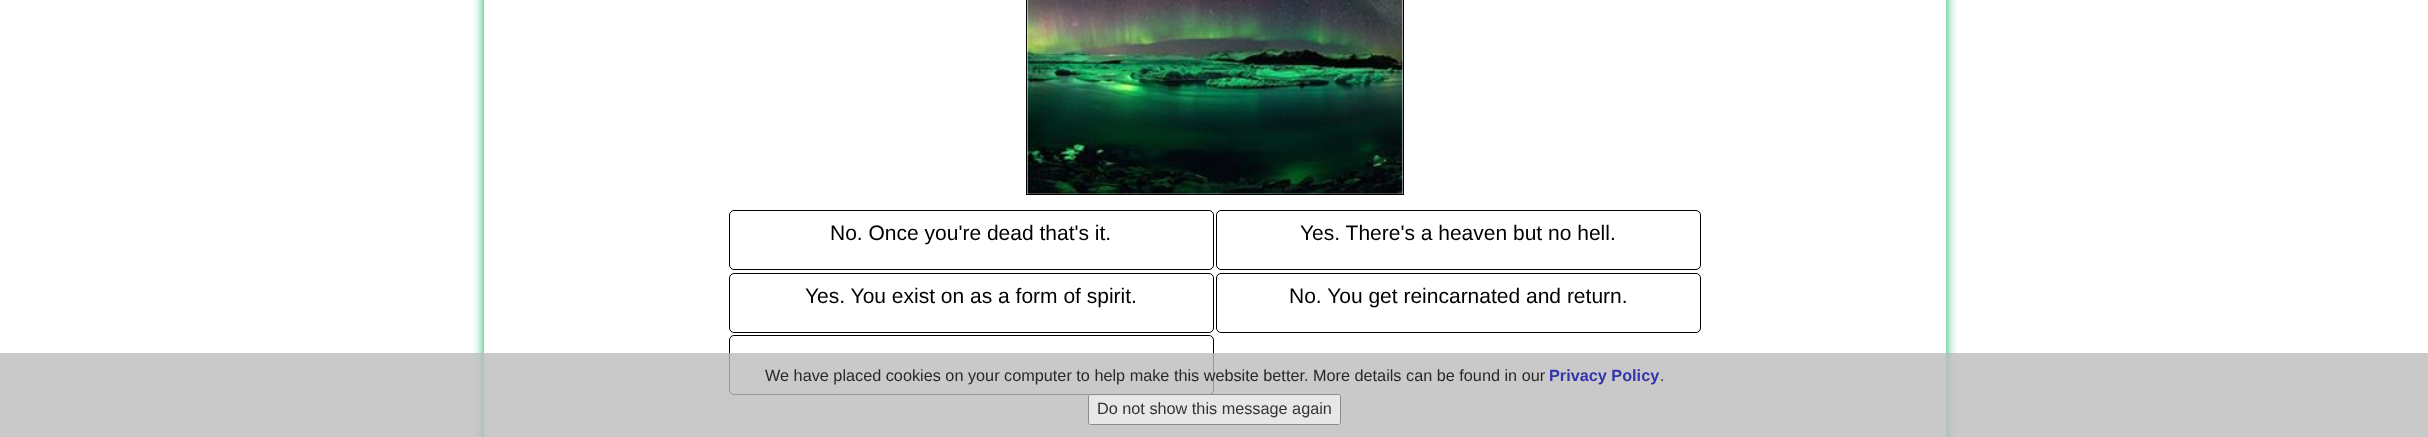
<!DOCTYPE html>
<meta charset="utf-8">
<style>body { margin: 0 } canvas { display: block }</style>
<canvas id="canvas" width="2428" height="437"></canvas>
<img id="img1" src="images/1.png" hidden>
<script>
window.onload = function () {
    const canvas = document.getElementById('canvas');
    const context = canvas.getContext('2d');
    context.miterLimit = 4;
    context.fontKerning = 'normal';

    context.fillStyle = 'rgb(255, 255, 255)';
    context.fillRect(0, 0, 2428, 437);
    context.save();
    context.beginPath();
    context.moveTo(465, 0);
    context.lineTo(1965, 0);
    context.lineTo(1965, 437);
    context.lineTo(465, 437);
    context.closePath();
    context.moveTo(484, -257);
    context.lineTo(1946, -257);
    context.lineTo(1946, 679);
    context.lineTo(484, 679);
    context.closePath();
    context.clip('evenodd');
    context.fillStyle = 'rgb(0, 176, 80)';
    context.filter = 'blur(6px)';
    context.beginPath();
    context.rect(484, -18, 1462, 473);
    context.fill();
    context.filter = 'none';
    context.restore();
    context.strokeStyle = 'rgb(0, 0, 0)';
    context.strokeRect(1026.5, -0.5, 377, 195);
    context.drawImage(document.getElementById('img1'), 1027, 0, 376, 194);
    context.beginPath();
    context.roundRect(729.5, 210.5, 484, 59, 4.5);
    context.stroke();
    context.beginPath();
    context.roundRect(1216.5, 210.5, 484, 59, 4.5);
    context.stroke();
    context.beginPath();
    context.roundRect(729.5, 273.5, 484, 59, 4.5);
    context.stroke();
    context.beginPath();
    context.roundRect(1216.5, 273.5, 484, 59, 4.5);
    context.stroke();
    context.beginPath();
    context.roundRect(729.5, 335.5, 484, 59, 4.5);
    context.stroke();
    context.fillStyle = 'rgba(187, 187, 188, 0.8)';
    context.fillRect(0, 353, 2428, 84);
    context.fillStyle = 'rgba(239, 239, 239, 0.8)';
    context.beginPath();
    context.roundRect(1088, 394, 253, 31, 2.5);
    context.fill();
    context.beginPath();
    context.roundRect(1088.5, 394.5, 252, 30, 2);
    context.strokeStyle = 'rgba(118, 118, 118, 0.8)';
    context.stroke();
    context.font = '21px Liberation Sans';
    context.fillStyle = 'rgb(0, 0, 0)';
    context.fillText('No. Once you\'re dead that\'s it.', 830, 240);
    context.fillText('Yes. There\'s a heaven but no hell.', 1300, 240);
    context.fillText('Yes. You exist on as a form of spirit.', 805, 303);
    context.fillText('No. You get reincarnated and return.', 1289, 303);
    context.font = '16.25px Liberation Sans';
    context.fillStyle = 'rgb(40, 40, 40)';
    context.fillText('We have placed cookies on your computer to help make this website better. More details can be found in our', 765, 381);
    context.font = 'bold 16.25px Liberation Sans';
    context.fillStyle = 'rgb(51, 51, 173)';
    context.fillText('Privacy Policy', 1549, 381);
    context.font = '16.25px Liberation Sans';
    context.fillStyle = 'rgb(51, 51, 51)';
    context.fillText('.', 1660, 381);
    context.fillText('Do not show this message again', 1097, 414);
};
</script>
